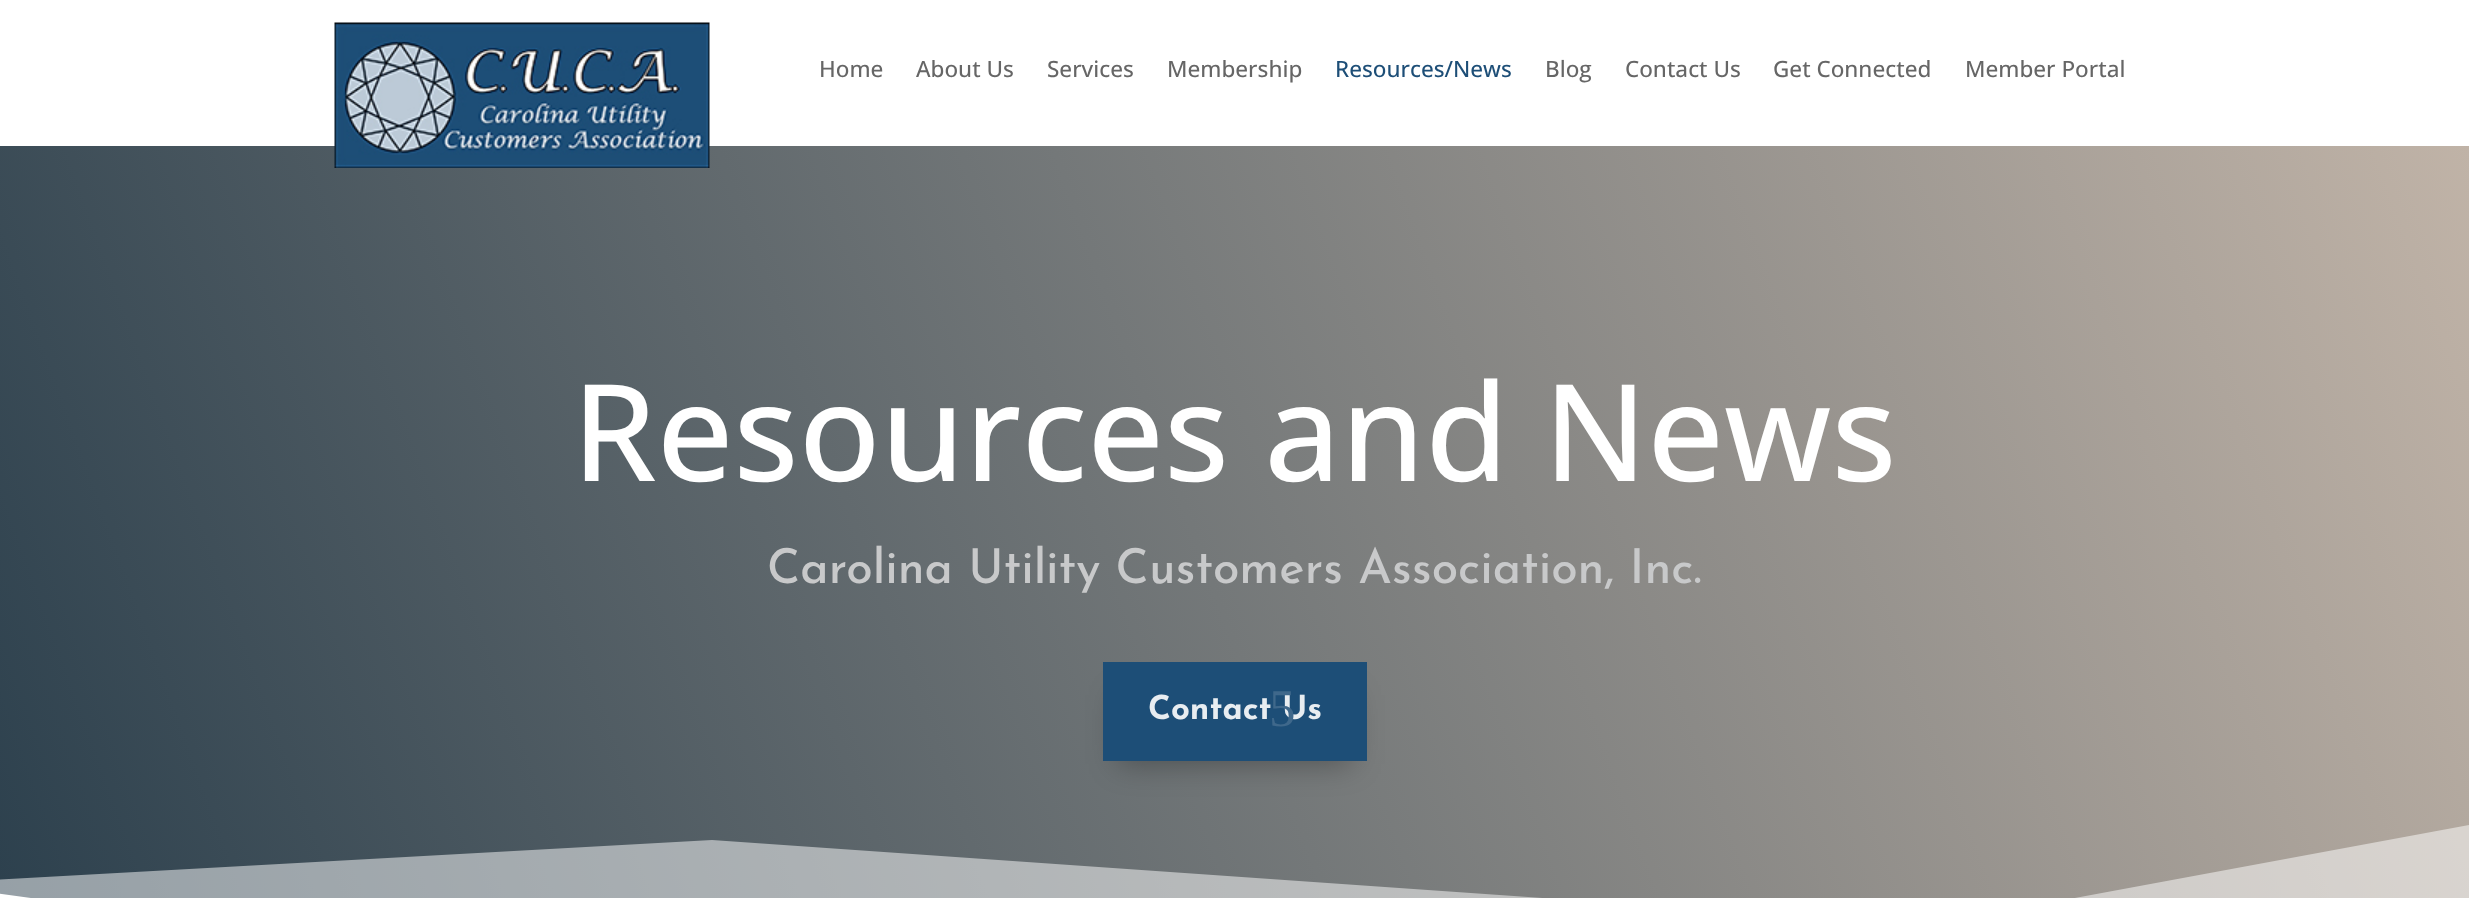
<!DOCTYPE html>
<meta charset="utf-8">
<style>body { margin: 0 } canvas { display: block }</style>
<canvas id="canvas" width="2469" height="898"></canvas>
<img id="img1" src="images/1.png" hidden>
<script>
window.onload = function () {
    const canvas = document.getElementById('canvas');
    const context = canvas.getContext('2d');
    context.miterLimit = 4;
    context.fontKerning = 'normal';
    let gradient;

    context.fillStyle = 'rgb(255, 255, 255)';
    context.fillRect(0, 0, 2469, 898);
    gradient = context.createLinearGradient(-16, 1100, 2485, 190);
    gradient.addColorStop(0, 'rgb(40, 61, 75)');
    gradient.addColorStop(1, 'rgb(192, 179, 167)');
    context.fillStyle = gradient;
    context.fillRect(0, 146, 2469, 752);
    context.drawImage(document.getElementById('img1'), 334, 22, 376, 146);
    context.fillStyle = 'rgba(0, 0, 0, 0.3)';
    context.filter = 'blur(15px)';
    context.beginPath();
    context.rect(1118, 695, 234, 69);
    context.fill();
    context.filter = 'none';
    context.fillStyle = 'rgb(29, 78, 119)';
    context.fillRect(1103, 662, 264, 99);
    context.fillStyle = 'rgba(255, 255, 255, 0.5)';
    context.beginPath();
    context.moveTo(2469, 825);
    context.lineTo(1929, 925);
    context.lineTo(712, 840);
    context.lineTo(-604, 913);
    context.lineTo(-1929, 775);
    context.lineTo(-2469, 825);
    context.lineTo(-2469, 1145);
    context.lineTo(2469, 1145);
    context.closePath();
    context.fill();
    context.fillStyle = 'rgb(255, 255, 255)';
    context.beginPath();
    context.moveTo(2469, 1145);
    context.lineTo(2469, 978);
    context.lineTo(1813, 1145);
    context.lineTo(-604, 810);
    context.lineTo(-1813, 838);
    context.lineTo(-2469, 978);
    context.lineTo(-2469, 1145);
    context.closePath();
    context.fill();
    context.font = '500 22.5px Open Sans';
    context.fillStyle = 'rgb(102, 102, 102)';
    context.fillText('Home', 819, 77);
    context.fillText('About Us', 916, 77);
    context.fillText('Services', 1047, 77);
    context.fillText('Membership', 1167, 77);
    context.fillStyle = 'rgb(29, 78, 119)';
    context.fillText('Resources/News', 1335, 77);
    context.fillStyle = 'rgb(102, 102, 102)';
    context.fillText('Blog', 1545, 77);
    context.fillText('Contact Us', 1625, 77);
    context.fillText('Get Connected', 1773, 77);
    context.fillText('Member Portal', 1965, 77);
    context.font = '500 135px Open Sans';
    context.fillStyle = 'rgb(255, 255, 255)';
    context.fillText('Resources and News', 572, 481);
    context.font = '100 48px Josefin Sans';
    context.fillStyle = 'rgb(200, 201, 202)';
    context.fillText('Carolina Utility Customers Association, Inc.', 767, 583);
    context.font = '100 33px "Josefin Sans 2"';
    context.fillStyle = 'rgb(232, 237, 241)';
    context.fillText('Contact Us', 1148, 719);
    context.font = '53px Liberation Serif';
    context.fillStyle = 'rgb(63, 104, 139)';
    context.fillText('5', 1269, 726);
};
</script>
